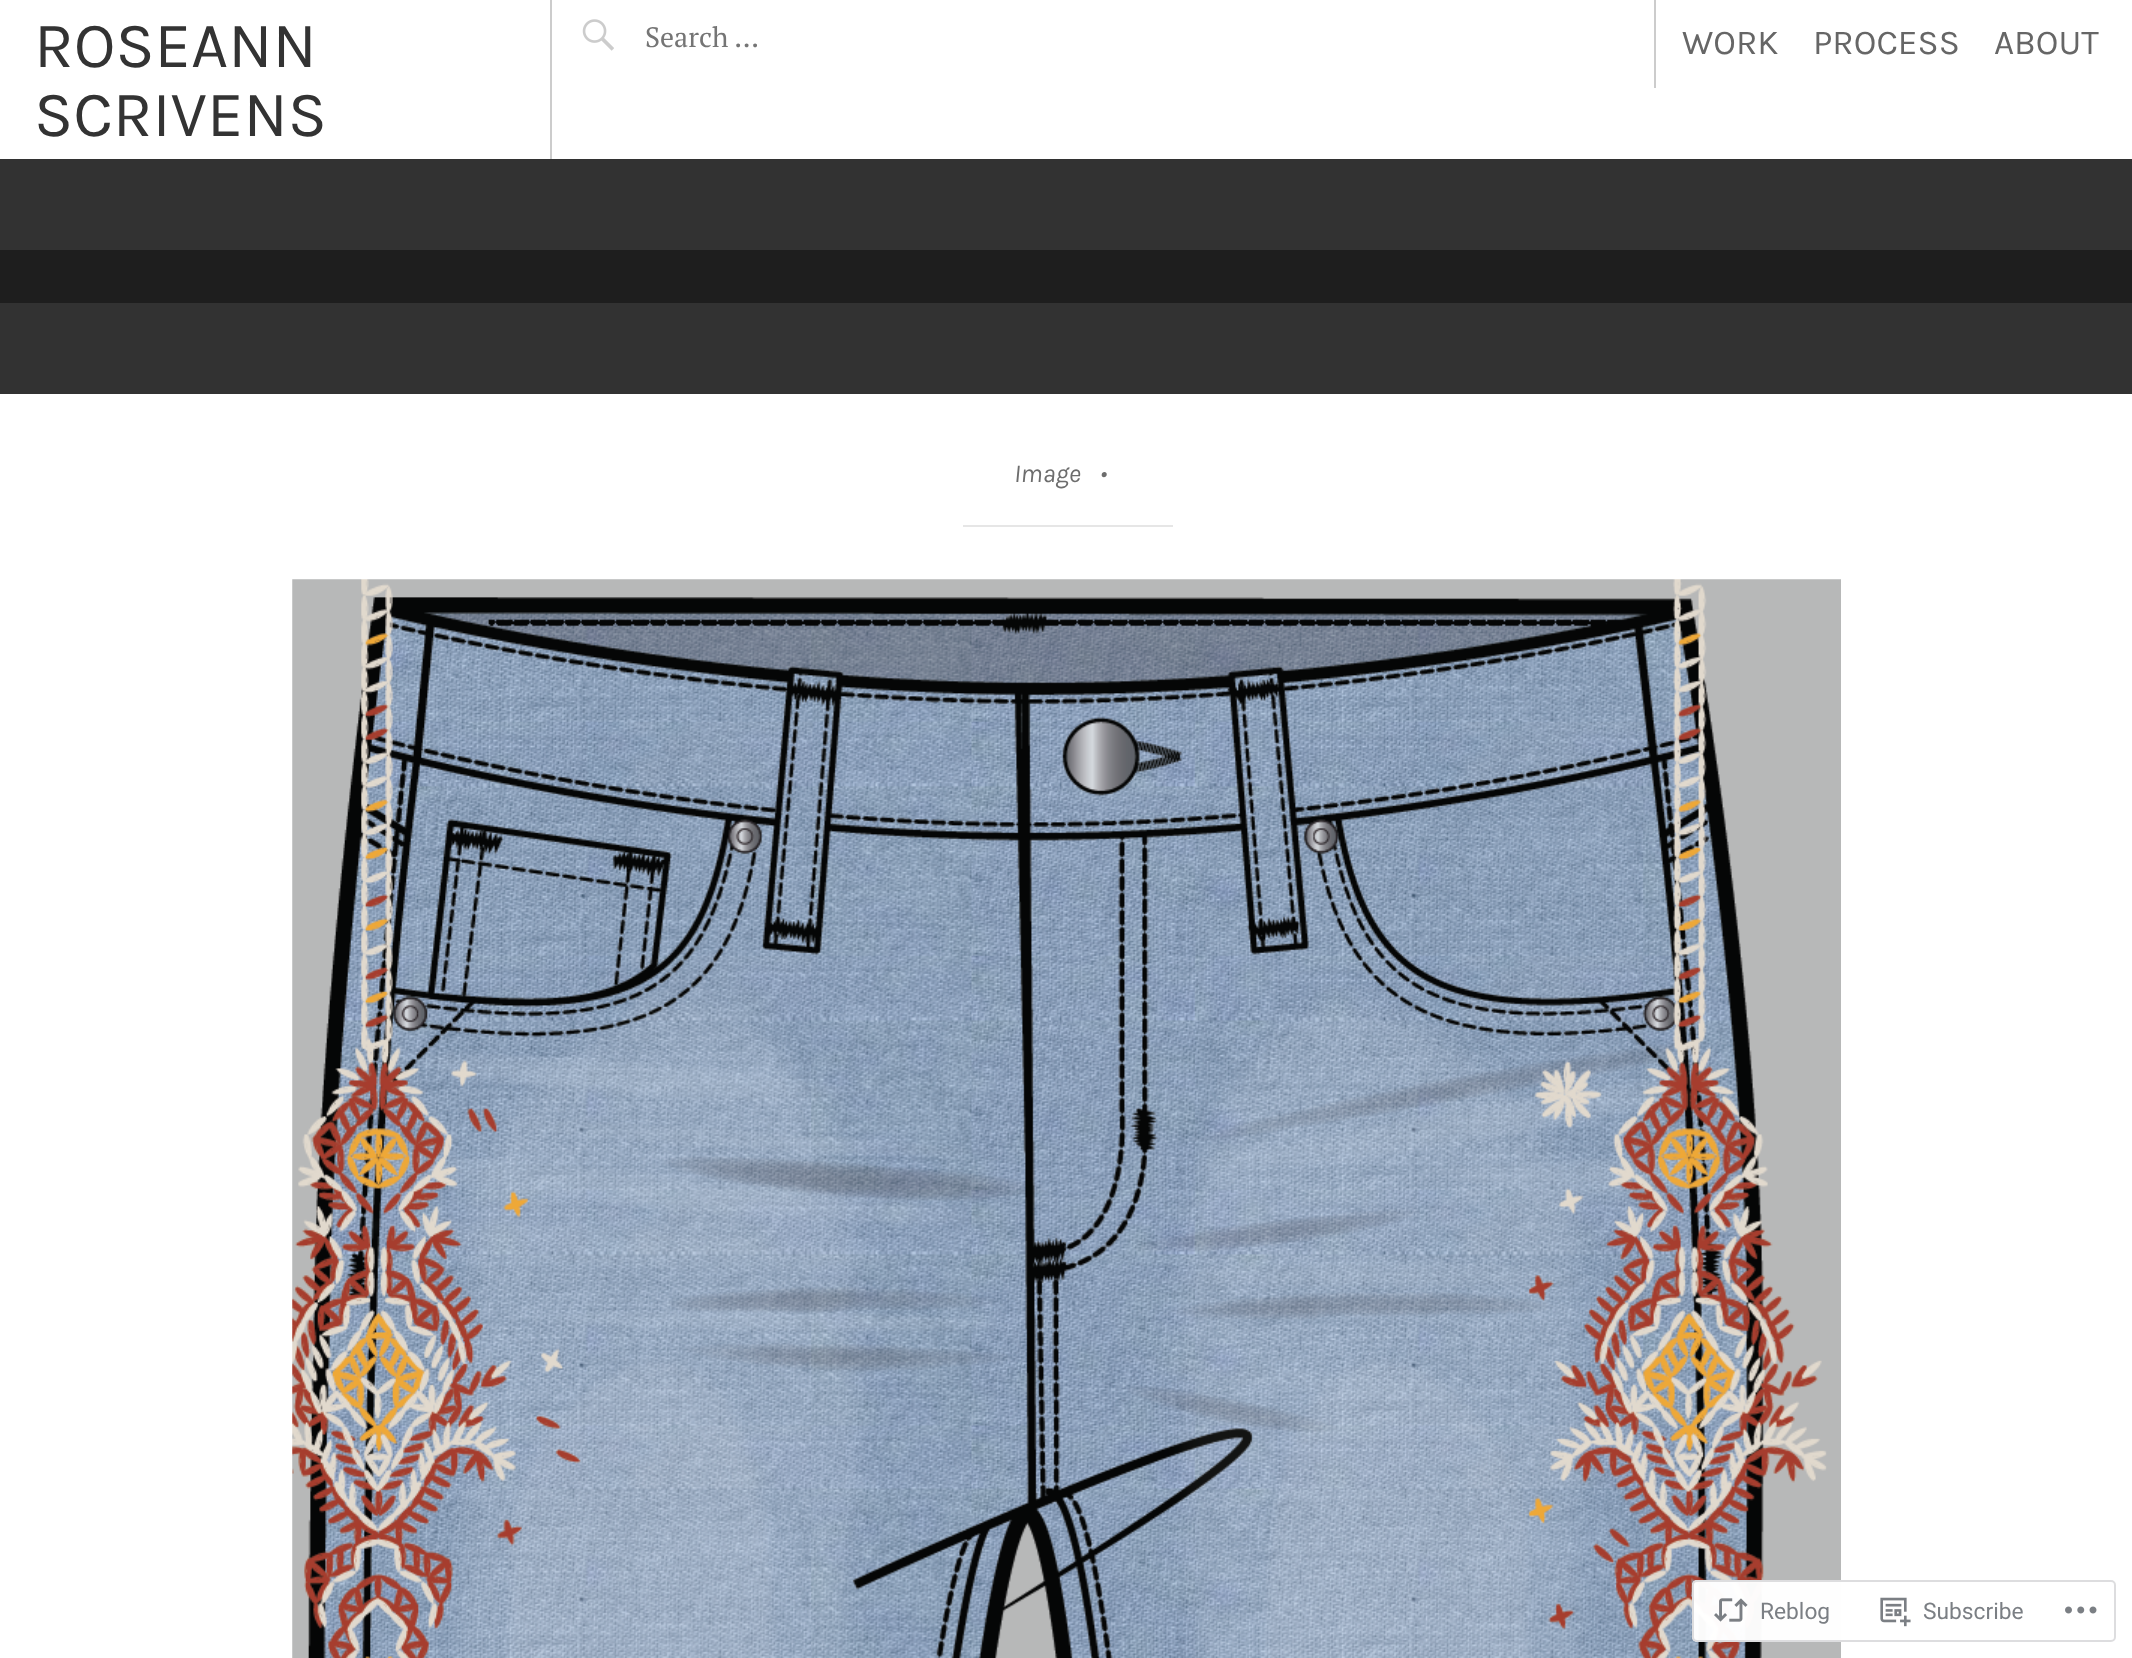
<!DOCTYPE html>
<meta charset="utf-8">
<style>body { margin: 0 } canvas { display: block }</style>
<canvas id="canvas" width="2132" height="1658"></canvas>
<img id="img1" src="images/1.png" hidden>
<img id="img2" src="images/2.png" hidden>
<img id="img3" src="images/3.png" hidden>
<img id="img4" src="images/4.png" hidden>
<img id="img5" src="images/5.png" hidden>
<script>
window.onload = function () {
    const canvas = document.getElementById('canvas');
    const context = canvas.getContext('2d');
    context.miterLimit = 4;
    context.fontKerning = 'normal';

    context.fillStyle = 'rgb(255, 255, 255)';
    context.fillRect(0, 0, 2132, 1658);
    context.fillStyle = 'rgb(204, 204, 204)';
    context.fillRect(550, 0, 2, 159);
    context.drawImage(document.getElementById('img1'), 582, 19, 32, 32);
    context.fillRect(1654, 0, 2, 88);
    context.fillStyle = 'rgb(30, 30, 30)';
    context.fillRect(0, 250, 2132, 53);
    context.fillStyle = 'rgb(50, 50, 50)';
    context.fillRect(0, 159, 2132, 91);
    context.fillRect(0, 303, 2132, 91);
    context.fillStyle = 'rgb(230, 230, 230)';
    context.fillRect(963, 525, 210, 2);
    context.drawImage(document.getElementById('img2'), 292, 579, 1549, 1079);
    context.fillStyle = 'rgba(255, 255, 255, 0.98)';
    context.beginPath();
    context.roundRect(1692, 1580, 424, 62, 5);
    context.fill();
    context.beginPath();
    context.roundRect(1693, 1581, 422, 60, 4);
    context.strokeStyle = 'rgba(220, 220, 222, 0.98)';
    context.lineWidth = 2;
    context.stroke();
    context.drawImage(document.getElementById('img3'), 1714, 1598, 34, 24);
    context.drawImage(document.getElementById('img4'), 1880, 1597, 31, 30);
    context.drawImage(document.getElementById('img5'), 2065, 1606, 32, 8);
    context.font = '64.75px Karla';
    context.fillStyle = 'rgb(51, 51, 51)';
    context.fillText('ROSEANN', 34, 67);
    context.fillText('SCRIVENS', 34, 136);
    context.font = '28px PT Serif';
    context.fillStyle = 'rgb(117, 117, 117)';
    context.fillText('Search …', 645, 47);
    context.font = '35px Karla';
    context.fillStyle = 'rgb(102, 102, 102)';
    context.fillText('WORK', 1682, 54);
    context.fillText('PROCESS', 1813, 54);
    context.fillText('ABOUT', 1994, 54);
    context.font = 'italic 26px Karla';
    context.fillStyle = 'rgb(109, 109, 109)';
    context.fillText('Image', 1014, 482);
    context.fillText('•', 1100, 482);
    context.font = '22.75px Roboto';
    context.fillStyle = 'rgb(123, 127, 132)';
    context.fillText('Reblog', 1760, 1619);
    context.fillText('Subscribe', 1923, 1619);
};
</script>
